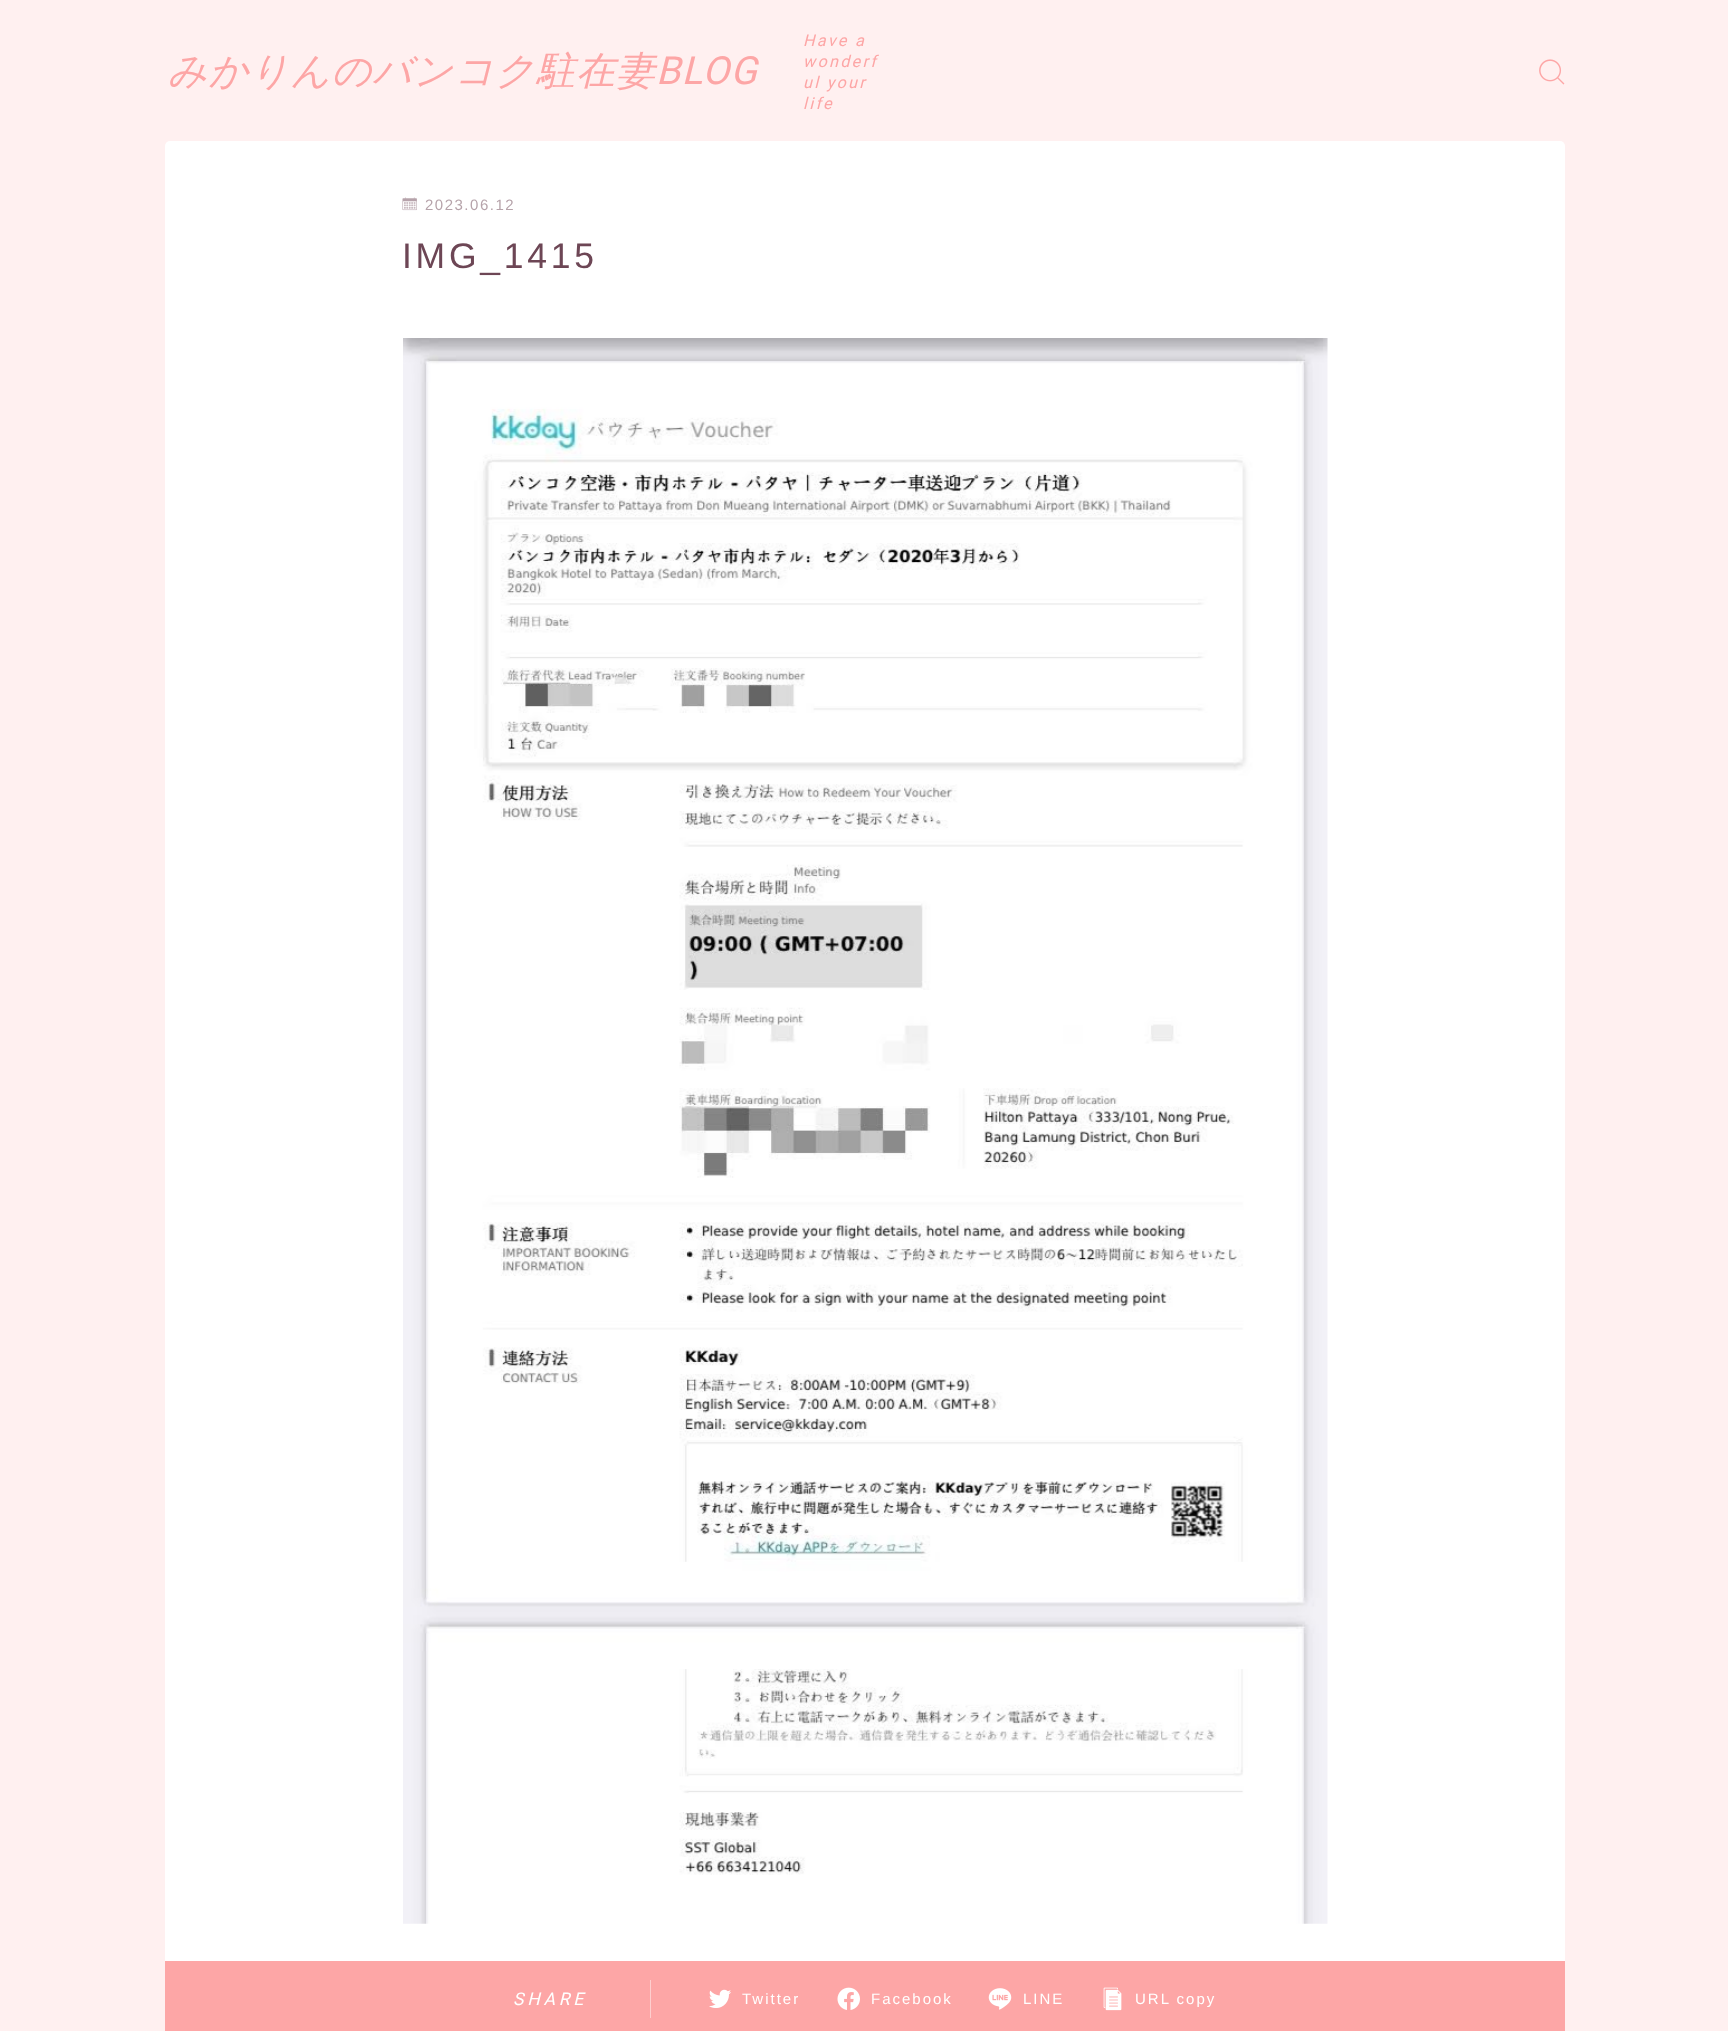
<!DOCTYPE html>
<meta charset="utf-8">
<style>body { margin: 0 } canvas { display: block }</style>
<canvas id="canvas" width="1728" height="2031"></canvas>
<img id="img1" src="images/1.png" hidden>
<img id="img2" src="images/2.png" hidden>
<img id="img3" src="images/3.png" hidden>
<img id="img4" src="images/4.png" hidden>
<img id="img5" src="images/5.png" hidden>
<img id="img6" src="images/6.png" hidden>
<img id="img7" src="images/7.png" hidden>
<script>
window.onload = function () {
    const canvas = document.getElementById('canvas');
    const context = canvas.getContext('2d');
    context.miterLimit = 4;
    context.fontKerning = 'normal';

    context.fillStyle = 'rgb(255, 240, 240)';
    context.fillRect(0, 0, 1728, 2031);
    context.drawImage(document.getElementById('img1'), 1539, 59, 26, 26);
    context.fillStyle = 'rgb(255, 255, 255)';
    context.beginPath();
    context.roundRect(165, 141, 1400, 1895, 5);
    context.fill();
    context.drawImage(document.getElementById('img2'), 402, 197, 15, 14);
    context.drawImage(document.getElementById('img3'), 403, 338, 925, 1586);
    context.fillStyle = 'rgb(253, 166, 166)';
    context.fillRect(165, 1961, 1400, 70);
    context.fillStyle = 'rgb(254, 206, 206)';
    context.fillRect(650, 1980, 1, 38);
    context.drawImage(document.getElementById('img4'), 709, 1989, 22, 19);
    context.drawImage(document.getElementById('img5'), 837, 1987, 23, 23);
    context.drawImage(document.getElementById('img6'), 988, 1988, 24, 22);
    context.drawImage(document.getElementById('img7'), 1103, 1987, 19, 24);
    context.letterSpacing = '1.25px';
    context.font = 'italic 500 38.75px WenQuanYi Zen Hei';
    context.fillStyle = 'rgb(253, 166, 166)';
    context.fillText('みかりんのバンコク駐在妻', 168, 84);
    context.font = 'italic 38.75px Roboto';
    context.fillText('BLOG', 656, 84);
    context.letterSpacing = '2.25px';
    context.font = 'italic 16.25px Roboto';
    context.fillText('Have a', 803, 46);
    context.fillText('wonderf', 803, 67);
    context.fillText('ul your', 803, 88);
    context.fillText('life', 803, 109);
    context.letterSpacing = '1.5px';
    context.font = '15px Liberation Sans';
    context.fillStyle = 'rgb(182, 163, 170)';
    context.fillText('2023.06.12', 425, 210);
    context.letterSpacing = '3.75px';
    context.font = '35.5px Liberation Sans';
    context.fillStyle = 'rgb(109, 70, 85)';
    context.fillText('IMG_1415', 402, 268);
    context.font = 'italic 17.5px Roboto';
    context.fillStyle = 'rgb(255, 255, 255)';
    context.fillText('SHARE', 513, 2005);
    context.letterSpacing = '2px';
    context.font = '15px Liberation Sans';
    context.fillText('Twitter', 742, 2004);
    context.fillText('Facebook', 871, 2004);
    context.fillText('LINE', 1023, 2004);
    context.fillText('URL copy', 1135, 2004);
};
</script>
